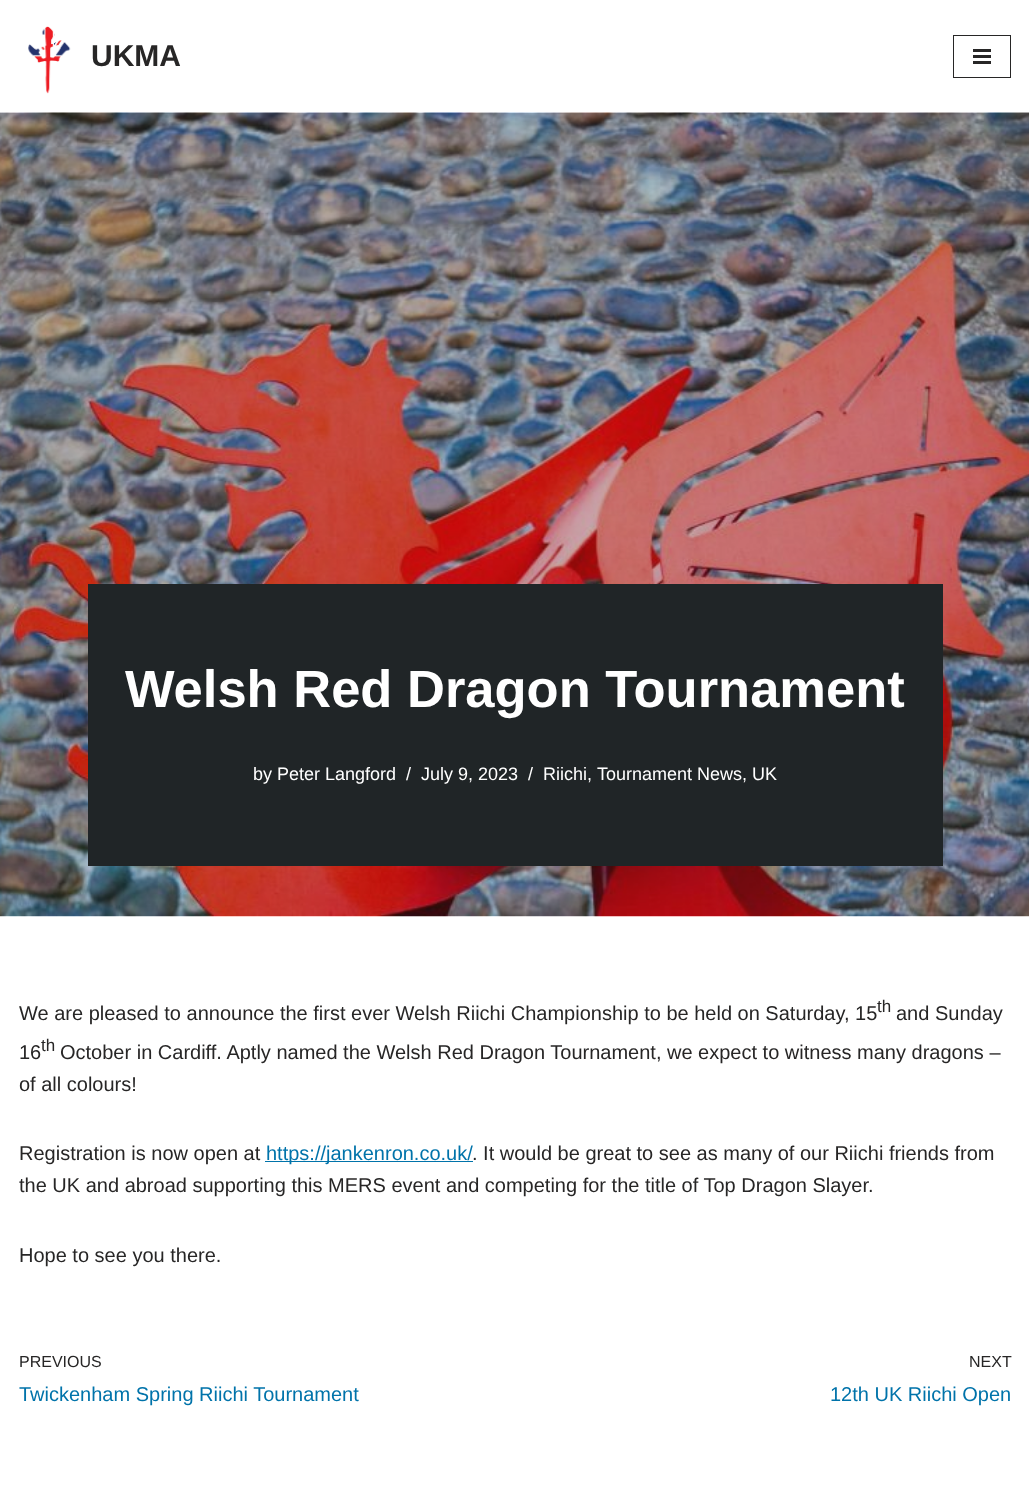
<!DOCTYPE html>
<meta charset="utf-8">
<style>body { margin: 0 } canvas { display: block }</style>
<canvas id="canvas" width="1029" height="1487"></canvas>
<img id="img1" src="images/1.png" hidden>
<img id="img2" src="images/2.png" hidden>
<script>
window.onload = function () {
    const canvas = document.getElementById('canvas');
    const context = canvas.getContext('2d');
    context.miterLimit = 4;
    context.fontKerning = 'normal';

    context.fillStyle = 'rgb(255, 255, 255)';
    context.fillRect(0, 0, 1029, 1487);
    context.drawImage(document.getElementById('img1'), 28, 26, 43, 68);
    context.strokeStyle = 'rgb(39, 38, 38)';
    context.strokeRect(953.5, 35.5, 57, 42);
    context.fillStyle = 'rgb(39, 38, 38)';
    context.fillRect(973, 49, 18, 3);
    context.fillRect(973, 55, 18, 3);
    context.fillRect(973, 61, 18, 3);
    context.drawImage(document.getElementById('img2'), 0, 112, 1029, 805);
    context.fillStyle = 'rgb(32, 37, 39)';
    context.fillRect(88, 584, 855, 282);
    context.fillStyle = 'rgb(0, 115, 170)';
    context.fillRect(265, 1161, 208, 1);
    context.font = 'bold 30px Liberation Sans';
    context.fillStyle = 'rgb(39, 38, 38)';
    context.fillText('UKMA', 91, 66);
    context.font = 'bold 52.5px Liberation Sans';
    context.fillStyle = 'rgb(255, 255, 255)';
    context.fillText('Welsh Red Dragon Tournament', 125, 707);
    context.font = '18px Liberation Sans';
    context.fillText('by Peter Langford', 253, 780);
    context.fillText('/', 406, 780);
    context.fillText('July 9, 2023', 421, 780);
    context.fillText('/', 528, 780);
    context.fillText('Riichi,', 543, 780);
    context.fillText('Tournament News, UK', 597, 780);
    context.font = '20px Liberation Sans';
    context.fillStyle = 'rgb(39, 38, 38)';
    context.fillText('We are pleased to announce the first ever Welsh Riichi Championship to be held on Saturday, 15', 19, 1020);
    context.font = '17px Liberation Sans';
    context.fillText('th', 877, 1012);
    context.font = '20px Liberation Sans';
    context.fillText('and Sunday', 896, 1020);
    context.fillText('16', 19, 1059);
    context.font = '17px Liberation Sans';
    context.fillText('th', 41, 1051);
    context.font = '20px Liberation Sans';
    context.fillText('October in Cardiff. Aptly named the Welsh Red Dragon Tournament, we expect to witness many dragons –', 60, 1059);
    context.fillText('of all colours!', 19, 1091);
    context.fillText('Registration is now open at', 19, 1160);
    context.fillStyle = 'rgb(0, 115, 170)';
    context.fillText('https://jankenron.co.uk/', 266, 1160);
    context.fillStyle = 'rgb(39, 38, 38)';
    context.fillText('. It would be great to see as many of our Riichi friends from', 472, 1160);
    context.fillText('the UK and abroad supporting this MERS event and competing for the title of Top Dragon Slayer.', 19, 1192);
    context.fillText('Hope to see you there.', 19, 1262);
    context.font = '16px Liberation Sans';
    context.fillText('PREVIOUS', 19, 1367);
    context.font = '20px Liberation Sans';
    context.fillStyle = 'rgb(0, 115, 170)';
    context.fillText('Twickenham Spring Riichi Tournament', 19, 1401);
    context.font = '16px Liberation Sans';
    context.fillStyle = 'rgb(39, 38, 38)';
    context.fillText('NEXT', 969, 1367);
    context.font = '20px Liberation Sans';
    context.fillStyle = 'rgb(0, 115, 170)';
    context.fillText('12th UK Riichi Open', 830, 1401);
};
</script>
